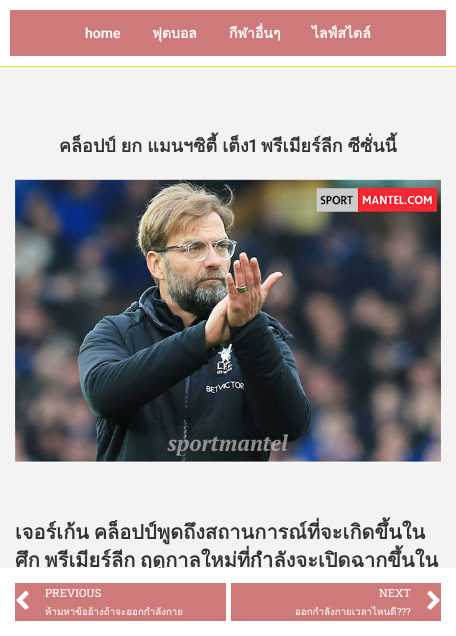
<!DOCTYPE html>
<meta charset="utf-8">
<style>body { margin: 0 } canvas { display: block }</style>
<canvas id="canvas" width="456" height="636"></canvas>
<img id="img1" src="images/1.png" hidden>
<img id="img2" src="images/2.png" hidden>
<img id="img3" src="images/3.png" hidden>
<script>
window.onload = function () {
    const canvas = document.getElementById('canvas');
    const context = canvas.getContext('2d');
    context.miterLimit = 4;
    context.fontKerning = 'normal';

    context.fillStyle = 'rgb(243, 243, 243)';
    context.fillRect(0, 0, 456, 636);
    context.fillStyle = 'rgb(255, 255, 255)';
    context.fillRect(0, 0, 456, 66);
    context.fillStyle = 'rgb(238, 238, 34)';
    context.fillRect(0, 66, 456, 1);
    context.fillStyle = 'rgb(206, 122, 122)';
    context.fillRect(10, 10, 436, 46);
    context.drawImage(document.getElementById('img1'), 15, 179, 426, 284);
    context.font = '600 14px Roboto';
    context.fillStyle = 'rgb(255, 255, 255)';
    context.fillText('home', 85, 38);
    context.font = 'bold 14px Loma';
    context.fillText('ฟุตบอล', 152, 38);
    context.fillText('กีฬาอื่นๆ', 229, 38);
    context.fillText('ไลฟ์สไตล์', 312, 38);
    context.wordSpacing = '-1px';
    context.font = 'bold 18px Loma';
    context.fillStyle = 'rgb(51, 51, 51)';
    context.fillText('คล็อปป์ ยก แมนฯซิตี้ เต็ง', 59, 152);
    context.wordSpacing = '0px';
    context.font = '600 18px Roboto';
    context.fillText('1', 248, 152);
    context.wordSpacing = '-1px';
    context.font = 'bold 18px Loma';
    context.fillText('พรีเมียร์ลีก ซีซั่นนี้', 261, 152);
    context.wordSpacing = '-2px';
    context.font = 'bold 20px Loma';
    context.fillText('เจอร์เก้น คล็อปป์', 15, 539);
    context.wordSpacing = '0px';
    context.fillText('พูดถึงสถานการณ์ที่จะเกิดขึ้นใน', 157, 539);
    context.wordSpacing = '-2px';
    context.fillText('ศึก พรีเมียร์ลีก ฤดูกาลใหม่ที่กำลังจะเปิดฉากขึ้นใน', 15, 567);
    context.fillStyle = 'rgb(255, 255, 255)';
    context.fillRect(0, 568, 456, 68);
    context.fillStyle = 'rgb(206, 122, 122)';
    context.fillRect(15, 583, 426, 38);
    context.drawImage(document.getElementById('img2'), 16, 590, 13, 20);
    context.wordSpacing = '0px';
    context.font = '11.25px Roboto Slab';
    context.fillStyle = 'rgb(255, 255, 255)';
    context.fillText('PREVIOUS', 45, 597);
    context.save();
    context.beginPath();
    context.rect(45, 603, 139, 18);
    context.clip();
    context.font = '9.75px Loma';
    context.fillText('ห้ามหาข้ออ้างถ้าจะออกกำลังกาย', 45, 615);
    context.restore();
    context.fillRect(226, 583, 5, 38);
    context.fillText('NEXT', 379, 597);
    context.font = '9.75px Loma';
    context.fillText('ออกกำลังกายเวลาไหนดี', 295, 615);
    context.font = '9.75px Roboto Slab';
    context.fillText('???', 397, 615);
    context.drawImage(document.getElementById('img3'), 427, 590, 13, 20);
};
</script>
